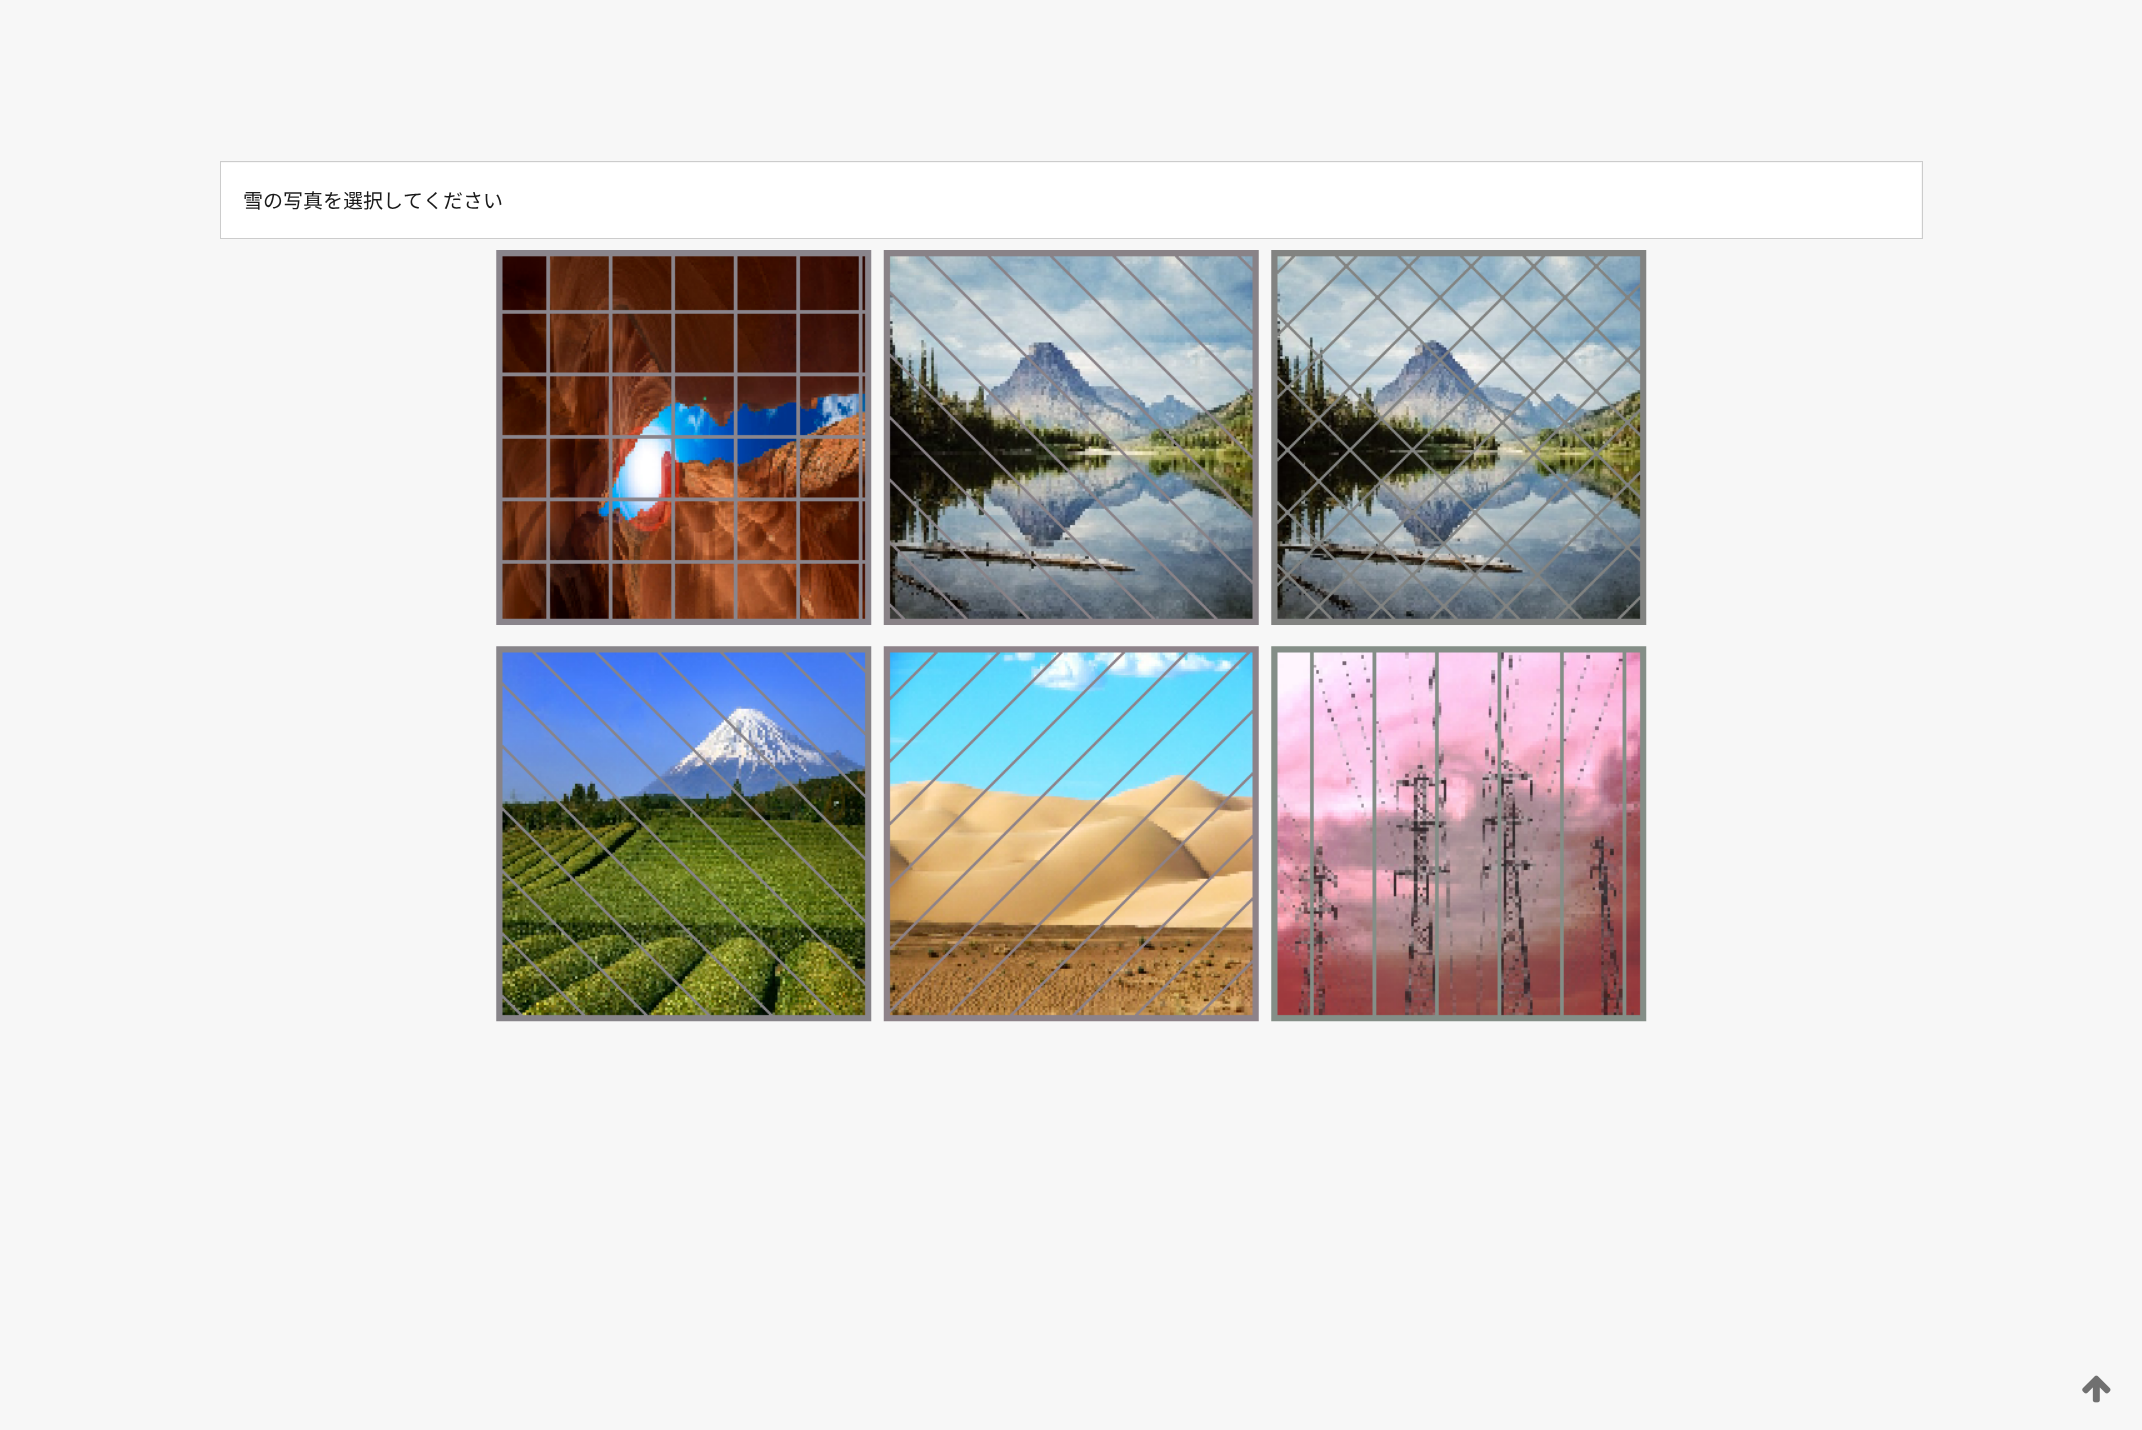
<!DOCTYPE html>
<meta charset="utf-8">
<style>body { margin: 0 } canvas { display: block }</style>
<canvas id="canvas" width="2142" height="1430"></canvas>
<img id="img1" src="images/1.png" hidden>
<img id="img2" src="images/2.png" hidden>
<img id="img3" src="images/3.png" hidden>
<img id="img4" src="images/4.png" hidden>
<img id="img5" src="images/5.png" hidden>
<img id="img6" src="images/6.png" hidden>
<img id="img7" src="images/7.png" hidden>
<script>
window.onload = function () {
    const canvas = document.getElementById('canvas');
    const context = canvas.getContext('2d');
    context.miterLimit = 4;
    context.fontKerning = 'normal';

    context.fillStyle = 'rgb(247, 247, 247)';
    context.fillRect(0, 0, 2142, 1430);
    context.fillStyle = 'rgb(255, 255, 255)';
    context.fillRect(221, 163, 1700, 75);
    context.strokeStyle = 'rgb(204, 204, 204)';
    context.strokeRect(220.5, 161.5, 1702, 77);
    context.drawImage(document.getElementById('img1'), 496, 250, 376, 375);
    context.drawImage(document.getElementById('img2'), 883, 250, 376, 375);
    context.drawImage(document.getElementById('img3'), 1271, 250, 376, 375);
    context.drawImage(document.getElementById('img4'), 496, 646, 376, 376);
    context.drawImage(document.getElementById('img5'), 883, 646, 376, 376);
    context.drawImage(document.getElementById('img6'), 1271, 646, 376, 376);
    context.drawImage(document.getElementById('img7'), 2082, 1375, 29, 28);
    context.font = '100 20px Noto Sans SC';
    context.fillStyle = 'rgb(26, 26, 26)';
    context.fillText('雪の写真を選択してください', 243, 208);
};
</script>
